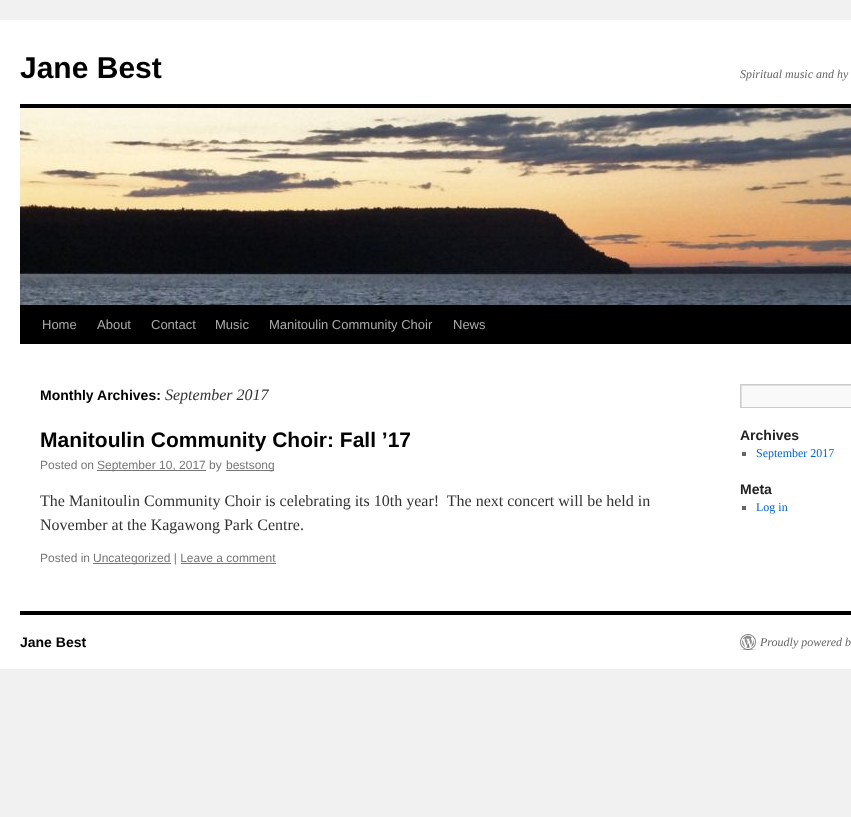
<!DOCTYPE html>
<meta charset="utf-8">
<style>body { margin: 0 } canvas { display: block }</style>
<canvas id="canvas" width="851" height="817"></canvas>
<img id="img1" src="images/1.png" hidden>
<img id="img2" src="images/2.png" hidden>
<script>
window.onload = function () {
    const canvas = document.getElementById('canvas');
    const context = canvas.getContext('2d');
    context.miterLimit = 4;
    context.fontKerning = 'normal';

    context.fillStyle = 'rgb(241, 241, 241)';
    context.fillRect(0, 0, 851, 817);
    context.fillStyle = 'rgb(255, 255, 255)';
    context.fillRect(0, 20, 851, 649);
    context.fillStyle = 'rgb(0, 0, 0)';
    context.fillRect(20, 104, 831, 4);
    context.fillRect(20, 305, 831, 39);
    context.drawImage(document.getElementById('img1'), 20, 108, 831, 197);
    context.fillStyle = 'rgb(119, 119, 119)';
    context.fillRect(97, 470, 109, 1);
    context.fillRect(226, 470, 48, 1);
    context.fillRect(93, 563, 78, 1);
    context.fillRect(181, 563, 95, 1);
    context.fillStyle = 'rgb(249, 249, 249)';
    context.fillRect(742, 386, 109, 21);
    context.save();
    context.beginPath();
    context.rect(741, 385, 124, 22);
    context.clip();
    context.fillStyle = 'rgb(224, 224, 224)';
    context.beginPath();
    context.moveTo(642, 286);
    context.lineTo(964, 286);
    context.lineTo(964, 506);
    context.lineTo(642, 506);
    context.closePath();
    context.moveTo(742, 386);
    context.lineTo(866, 386);
    context.lineTo(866, 408);
    context.lineTo(742, 408);
    context.closePath();
    context.fill('evenodd');
    context.restore();
    context.strokeStyle = 'rgb(204, 204, 204)';
    context.strokeRect(740.5, 384.5, 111, 23);
    context.fillStyle = 'rgb(102, 102, 102)';
    context.fillRect(742, 452, 4, 4);
    context.fillRect(742, 506, 4, 4);
    context.fillStyle = 'rgb(0, 0, 0)';
    context.fillRect(20, 611, 831, 4);
    context.drawImage(document.getElementById('img2'), 740, 634, 16, 16);
    context.font = 'bold 30px Liberation Sans';
    context.fillText('Jane Best', 20, 78);
    context.font = 'italic 12px Liberation Serif';
    context.fillStyle = 'rgb(102, 102, 102)';
    context.fillText('Spiritual music and hy', 740, 78);
    context.font = '13px Liberation Sans';
    context.fillStyle = 'rgb(170, 170, 170)';
    context.fillText('Home', 42, 329);
    context.fillText('About', 97, 329);
    context.fillText('Contact', 151, 329);
    context.fillText('Music', 215, 329);
    context.fillText('Manitoulin Community Choir', 269, 329);
    context.fillText('News', 453, 329);
    context.font = 'bold 14px Liberation Sans';
    context.fillStyle = 'rgb(0, 0, 0)';
    context.fillText('Monthly Archives:', 40, 400);
    context.font = 'italic 16px Liberation Serif';
    context.fillStyle = 'rgb(51, 51, 51)';
    context.fillText('September 2017', 165, 400);
    context.font = 'bold 21px Liberation Sans';
    context.fillStyle = 'rgb(0, 0, 0)';
    context.fillText('Manitoulin Community Choir: Fall ’17', 40, 447);
    context.font = '12px Liberation Sans';
    context.fillStyle = 'rgb(119, 119, 119)';
    context.fillText('Posted on', 40, 469);
    context.fillText('September 10, 2017 by', 97, 469);
    context.fillText('bestsong', 226, 469);
    context.font = '16px Liberation Serif';
    context.fillStyle = 'rgb(51, 51, 51)';
    context.fillText('The Manitoulin Community Choir is celebrating its 10th year!  The next concert will be held in', 40, 506);
    context.fillText('November at the Kagawong Park Centre.', 40, 530);
    context.font = '12px Liberation Sans';
    context.fillStyle = 'rgb(119, 119, 119)';
    context.fillText('Posted in', 40, 562);
    context.fillText('Uncategorized | Leave a comment', 93, 562);
    context.font = 'bold 14px Liberation Sans';
    context.fillStyle = 'rgb(34, 34, 34)';
    context.fillText('Archives', 740, 440);
    context.font = '12px Liberation Serif';
    context.fillStyle = 'rgb(0, 102, 204)';
    context.fillText('September 2017', 756, 457);
    context.font = 'bold 14px Liberation Sans';
    context.fillStyle = 'rgb(34, 34, 34)';
    context.fillText('Meta', 740, 494);
    context.font = '12px Liberation Serif';
    context.fillStyle = 'rgb(0, 102, 204)';
    context.fillText('Log in', 756, 511);
    context.font = 'bold 14px Liberation Sans';
    context.fillStyle = 'rgb(0, 0, 0)';
    context.fillText('Jane Best', 20, 647);
    context.font = 'italic 12px Liberation Serif';
    context.fillStyle = 'rgb(102, 102, 102)';
    context.fillText('Proudly powered b', 760, 646);
};
</script>
